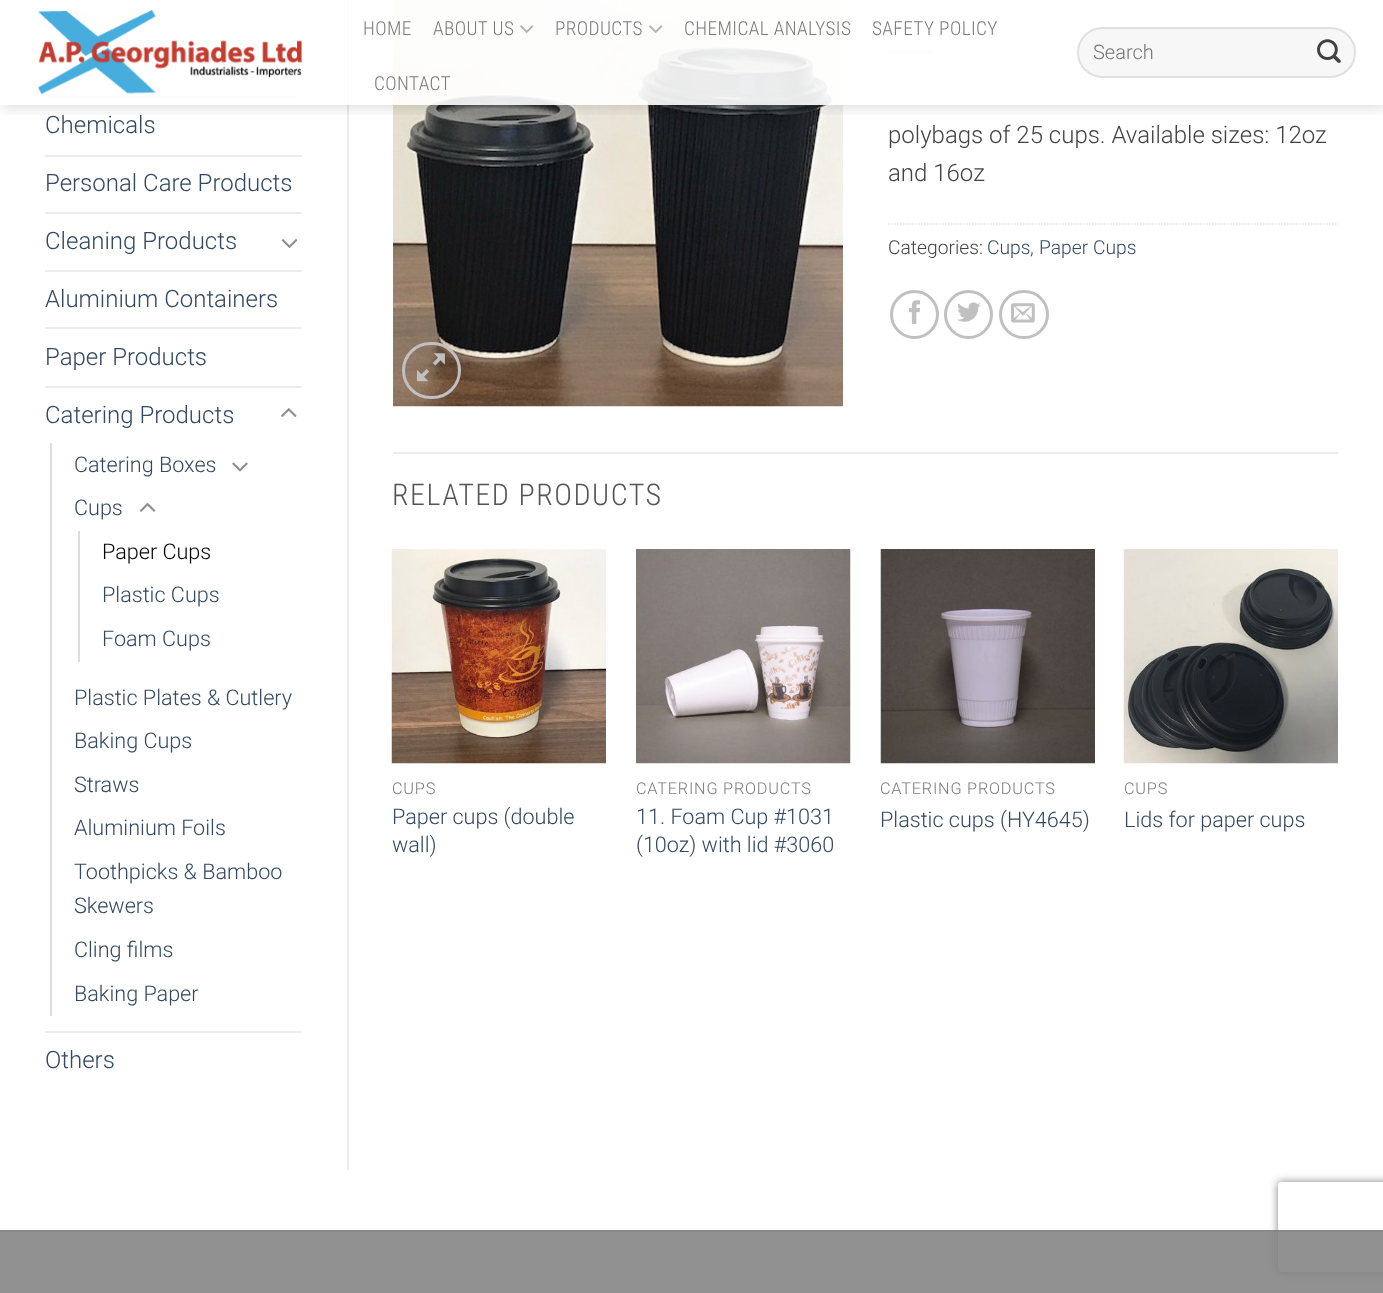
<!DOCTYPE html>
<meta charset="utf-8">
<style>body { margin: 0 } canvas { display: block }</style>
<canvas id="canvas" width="1383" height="1293"></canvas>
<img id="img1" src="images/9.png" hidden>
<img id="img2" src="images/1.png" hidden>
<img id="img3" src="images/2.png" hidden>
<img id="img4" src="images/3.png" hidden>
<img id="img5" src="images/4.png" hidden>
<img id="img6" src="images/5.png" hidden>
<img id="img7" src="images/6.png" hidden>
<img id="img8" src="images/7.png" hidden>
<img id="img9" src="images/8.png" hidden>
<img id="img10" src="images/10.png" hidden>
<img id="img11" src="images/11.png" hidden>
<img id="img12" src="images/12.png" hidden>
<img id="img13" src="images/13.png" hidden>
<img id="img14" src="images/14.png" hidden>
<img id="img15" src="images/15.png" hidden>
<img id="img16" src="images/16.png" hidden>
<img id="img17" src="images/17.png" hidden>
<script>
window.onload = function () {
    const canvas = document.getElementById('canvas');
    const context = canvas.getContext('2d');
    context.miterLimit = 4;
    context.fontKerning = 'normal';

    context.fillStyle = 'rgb(255, 255, 255)';
    context.fillRect(0, 0, 1383, 1293);
    context.fillStyle = 'rgb(230, 230, 230)';
    context.fillRect(45, 11, 45, 5);
    context.fillStyle = 'rgb(236, 236, 236)';
    context.fillRect(45, 96, 257, 2);
    context.fillRect(347, 0, 2, 1170);
    context.drawImage(document.getElementById('img1'), 393, 0, 450, 407);
    context.fillStyle = 'rgb(230, 230, 230)';
    context.fillRect(888, 50, 45, 5);
    context.save();
    context.beginPath();
    context.rect(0, 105, 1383, 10);
    context.clip();
    context.fillStyle = 'rgba(0, 0, 0, 0.15)';
    context.filter = 'blur(7.5px)';
    context.beginPath();
    context.rect(2, 2, 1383, 105);
    context.fill();
    context.filter = 'none';
    context.restore();
    context.fillStyle = 'rgba(255, 255, 255, 0.9)';
    context.fillRect(45, 0, 888, 105);
    context.drawImage(document.getElementById('img2'), 37, 10, 265, 85);
    context.drawImage(document.getElementById('img3'), 520, 25, 14, 8);
    context.drawImage(document.getElementById('img4'), 649, 25, 14, 8);
    context.fillStyle = 'rgb(247, 247, 247)';
    context.beginPath();
    context.roundRect(1077, 27, 279, 51, 25.5);
    context.fill();
    context.beginPath();
    context.roundRect(1078, 28, 277, 49, 24.5);
    context.strokeStyle = 'rgba(0, 0, 0, 0.09)';
    context.lineWidth = 2;
    context.stroke();
    context.drawImage(document.getElementById('img5'), 1317, 39, 24, 24);
    context.fillStyle = 'rgb(236, 236, 236)';
    context.fillRect(45, 155, 257, 2);
    context.fillRect(45, 212, 257, 2);
    context.drawImage(document.getElementById('img6'), 281, 239, 17, 9);
    context.fillRect(45, 270, 257, 2);
    context.fillRect(45, 327, 257, 2);
    context.fillRect(45, 386, 257, 2);
    context.drawImage(document.getElementById('img7'), 281, 408, 16, 9);
    context.fillStyle = 'rgb(221, 221, 221)';
    context.fillRect(50, 443, 2, 573);
    context.drawImage(document.getElementById('img8'), 232, 462, 16, 10);
    context.drawImage(document.getElementById('img9'), 139, 502, 17, 10);
    context.fillRect(78, 531, 2, 131);
    context.fillStyle = 'rgb(236, 236, 236)';
    context.fillRect(45, 1031, 257, 2);
    context.beginPath();
    context.roundRect(403.5, 343.5, 56, 54, 27);
    context.strokeStyle = 'rgb(192, 192, 192)';
    context.lineWidth = 3;
    context.stroke();
    context.drawImage(document.getElementById('img10'), 417, 353, 28, 29);
    context.beginPath();
    context.moveTo(888, 224);
    context.lineTo(1338, 224);
    context.strokeStyle = 'rgb(221, 221, 221)';
    context.lineWidth = 1.5;
    context.setLineDash([1.5, 1.5]);
    context.stroke();
    context.beginPath();
    context.arc(914.5, 314.5, 23, 0, 2 * Math.PI);
    context.strokeStyle = 'rgb(192, 192, 192)';
    context.lineWidth = 3;
    context.setLineDash([]);
    context.stroke();
    context.drawImage(document.getElementById('img11'), 909, 300, 11, 24);
    context.beginPath();
    context.arc(968.5, 314.5, 23, 0, 2 * Math.PI);
    context.stroke();
    context.drawImage(document.getElementById('img12'), 957, 302, 24, 20);
    context.beginPath();
    context.roundRect(1000.5, 291.5, 47, 46, 23);
    context.stroke();
    context.drawImage(document.getElementById('img13'), 1011, 303, 24, 20);
    context.fillRect(393, 452, 945, 2);
    context.drawImage(document.getElementById('img14'), 391, 549, 215, 215);
    context.drawImage(document.getElementById('img15'), 636, 549, 215, 215);
    context.drawImage(document.getElementById('img16'), 880, 549, 215, 215);
    context.drawImage(document.getElementById('img17'), 1123, 549, 215, 215);
    context.fillStyle = 'rgb(145, 145, 145)';
    context.fillRect(0, 1232, 1383, 61);
    context.fillStyle = 'rgb(138, 138, 138)';
    context.fillRect(0, 1230, 1383, 2);
    context.save();
    context.beginPath();
    context.moveTo(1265, 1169);
    context.lineTo(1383, 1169);
    context.lineTo(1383, 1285);
    context.lineTo(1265, 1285);
    context.closePath();
    context.moveTo(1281, 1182);
    context.lineTo(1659, 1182);
    context.bezierCurveTo(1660.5, 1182, 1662, 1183.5, 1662, 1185);
    context.lineTo(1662, 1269);
    context.bezierCurveTo(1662, 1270.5, 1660.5, 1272, 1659, 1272);
    context.lineTo(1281, 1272);
    context.bezierCurveTo(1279.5, 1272, 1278, 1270.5, 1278, 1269);
    context.lineTo(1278, 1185);
    context.bezierCurveTo(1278, 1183.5, 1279.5, 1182, 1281, 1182);
    context.closePath();
    context.clip('evenodd');
    context.fillStyle = 'rgb(128, 128, 128)';
    context.filter = 'blur(4px)';
    context.beginPath();
    context.roundRect(1278, 1182, 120, 90, 3);
    context.fill();
    context.filter = 'none';
    context.restore();
    context.letterSpacing = '0.4px';
    context.font = '300 19.25px Roboto Condensed';
    context.fillStyle = 'rgb(123, 123, 123)';
    context.fillText('HOME', 363, 35);
    context.fillText('ABOUT US', 433, 35);
    context.fillText('PRODUCTS', 555, 35);
    context.fillText('CHEMICAL ANALYSIS', 684, 35);
    context.fillText('SAFETY POLICY', 872, 35);
    context.fillText('CONTACT', 374, 90);
    context.letterSpacing = '0px';
    context.font = '300 20px Roboto';
    context.fillStyle = 'rgb(117, 117, 117)';
    context.fillText('Search', 1093, 59);
    context.font = '300 24px Roboto';
    context.fillStyle = 'rgb(51, 72, 98)';
    context.fillText('Chemicals', 45, 133);
    context.fillText('Personal Care Products', 45, 191);
    context.fillText('Cleaning Products', 45, 249);
    context.fillText('Aluminium Containers', 45, 307);
    context.fillText('Paper Products', 45, 365);
    context.fillText('Catering Products', 45, 423);
    context.font = '300 21.6px Roboto';
    context.fillText('Catering Boxes', 74, 472);
    context.fillText('Cups', 74, 515);
    context.fillStyle = 'rgb(0, 0, 0)';
    context.fillText('Paper Cups', 102, 559);
    context.fillStyle = 'rgb(51, 72, 98)';
    context.fillText('Plastic Cups', 102, 602);
    context.fillText('Foam Cups', 102, 646);
    context.fillText('Plastic Plates & Cutlery', 74, 705);
    context.fillText('Baking Cups', 74, 748);
    context.fillText('Straws', 74, 792);
    context.fillText('Aluminium Foils', 74, 835);
    context.fillText('Toothpicks & Bamboo', 74, 879);
    context.fillText('Skewers', 74, 913);
    context.fillText('Cling films', 74, 957);
    context.fillText('Baking Paper', 74, 1001);
    context.font = '300 24px Roboto';
    context.fillText('Others', 45, 1068);
    context.fillStyle = 'rgb(66, 66, 66)';
    context.fillText('polybags of 25 cups. Available sizes: 12oz', 888, 143);
    context.fillText('and 16oz', 888, 181);
    context.font = '300 19.25px Roboto';
    context.fillText('Categories:', 888, 254);
    context.fillStyle = 'rgb(51, 72, 98)';
    context.fillText('Cups', 987, 254);
    context.fillStyle = 'rgb(66, 66, 66)';
    context.fillText(',', 1030, 254);
    context.fillStyle = 'rgb(51, 72, 98)';
    context.fillText('Paper Cups', 1039, 254);
    context.letterSpacing = '1.5px';
    context.font = '300 30px Roboto Condensed';
    context.fillStyle = 'rgb(85, 85, 85)';
    context.fillText('RELATED PRODUCTS', 392, 505);
    context.letterSpacing = '0.8px';
    context.font = '300 16.25px Roboto';
    context.fillStyle = 'rgb(123, 123, 123)';
    context.fillText('CUPS', 392, 794);
    context.letterSpacing = '0px';
    context.font = '300 21.6px Roboto';
    context.fillStyle = 'rgb(51, 72, 98)';
    context.fillText('Paper cups (double', 392, 824);
    context.fillText('wall)', 392, 852);
    context.letterSpacing = '0.8px';
    context.font = '300 16.25px Roboto';
    context.fillStyle = 'rgb(123, 123, 123)';
    context.fillText('CATERING PRODUCTS', 636, 794);
    context.letterSpacing = '0px';
    context.font = '300 21.6px Roboto';
    context.fillStyle = 'rgb(51, 72, 98)';
    context.fillText('11. Foam Cup #1031', 636, 824);
    context.fillText('(10oz) with lid #3060', 636, 852);
    context.save();
    context.beginPath();
    context.rect(881, 782, 214, 19);
    context.clip();
    context.letterSpacing = '0.8px';
    context.font = '300 16.25px Roboto';
    context.fillStyle = 'rgb(123, 123, 123)';
    context.fillText('CATERING PRODUCTS', 880, 794);
    context.restore();
    context.fillText('Plastic cups (HY4645)', 880, 827);
    context.letterSpacing = '0.8px';
    context.font = '300 16.25px Roboto';
    context.fillStyle = 'rgb(123, 123, 123)';
    context.fillText('CUPS', 1124, 794);
    context.letterSpacing = '0px';
    context.font = '300 21.6px Roboto';
    context.fillStyle = 'rgb(51, 72, 98)';
    context.fillText('Lids for paper cups', 1124, 827);
};
</script>
